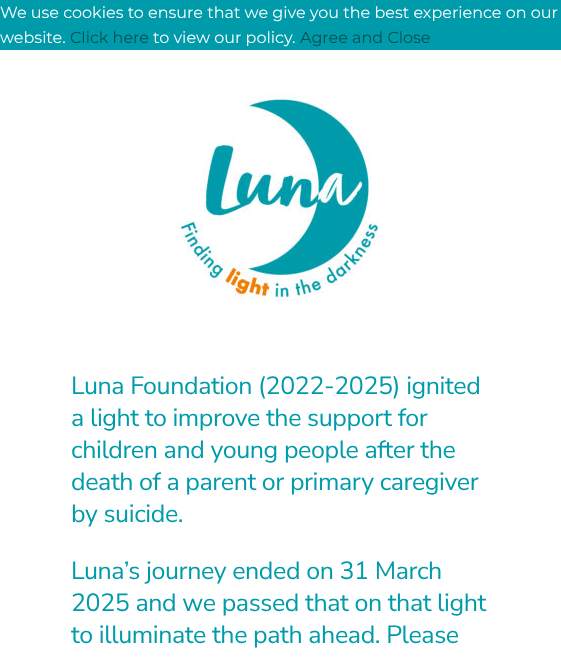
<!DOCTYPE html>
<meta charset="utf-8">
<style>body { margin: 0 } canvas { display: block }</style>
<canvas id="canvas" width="561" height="669"></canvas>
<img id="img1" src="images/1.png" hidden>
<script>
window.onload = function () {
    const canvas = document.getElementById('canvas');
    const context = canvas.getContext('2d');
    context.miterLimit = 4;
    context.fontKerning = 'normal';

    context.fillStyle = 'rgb(255, 255, 255)';
    context.fillRect(0, 0, 561, 669);
    context.fillStyle = 'rgb(0, 155, 170)';
    context.fillRect(0, 0, 561, 50);
    context.drawImage(document.getElementById('img1'), 179, 93, 200, 208);
    context.font = '16px Montserrat';
    context.fillStyle = 'rgb(255, 255, 255)';
    context.fillText('We use cookies to ensure that we give you the best experience on our', 0, 18);
    context.fillText('website.', 0, 43);
    context.fillStyle = 'rgb(0, 81, 85)';
    context.fillText('Click here', 70, 43);
    context.fillStyle = 'rgb(255, 255, 255)';
    context.fillText('to view our policy.', 153, 43);
    context.fillStyle = 'rgb(0, 81, 85)';
    context.fillText('Agree and Close', 300, 43);
    context.letterSpacing = '-0.4px';
    context.font = '25px Nunito Sans';
    context.fillStyle = 'rgb(0, 155, 170)';
    context.fillText('Luna Foundation (2022-2025) ignited', 71, 394);
    context.fillText('a light to improve the support for', 71, 426);
    context.fillText('children and young people after the', 71, 458);
    context.fillText('death of a parent or primary caregiver', 71, 490);
    context.fillText('by suicide.', 71, 522);
    context.fillText('Luna’s journey ended on 31 March', 71, 579);
    context.fillText('2025 and we passed that on that light', 71, 611);
    context.fillText('to illuminate the path ahead. Please', 71, 643);
};
</script>
